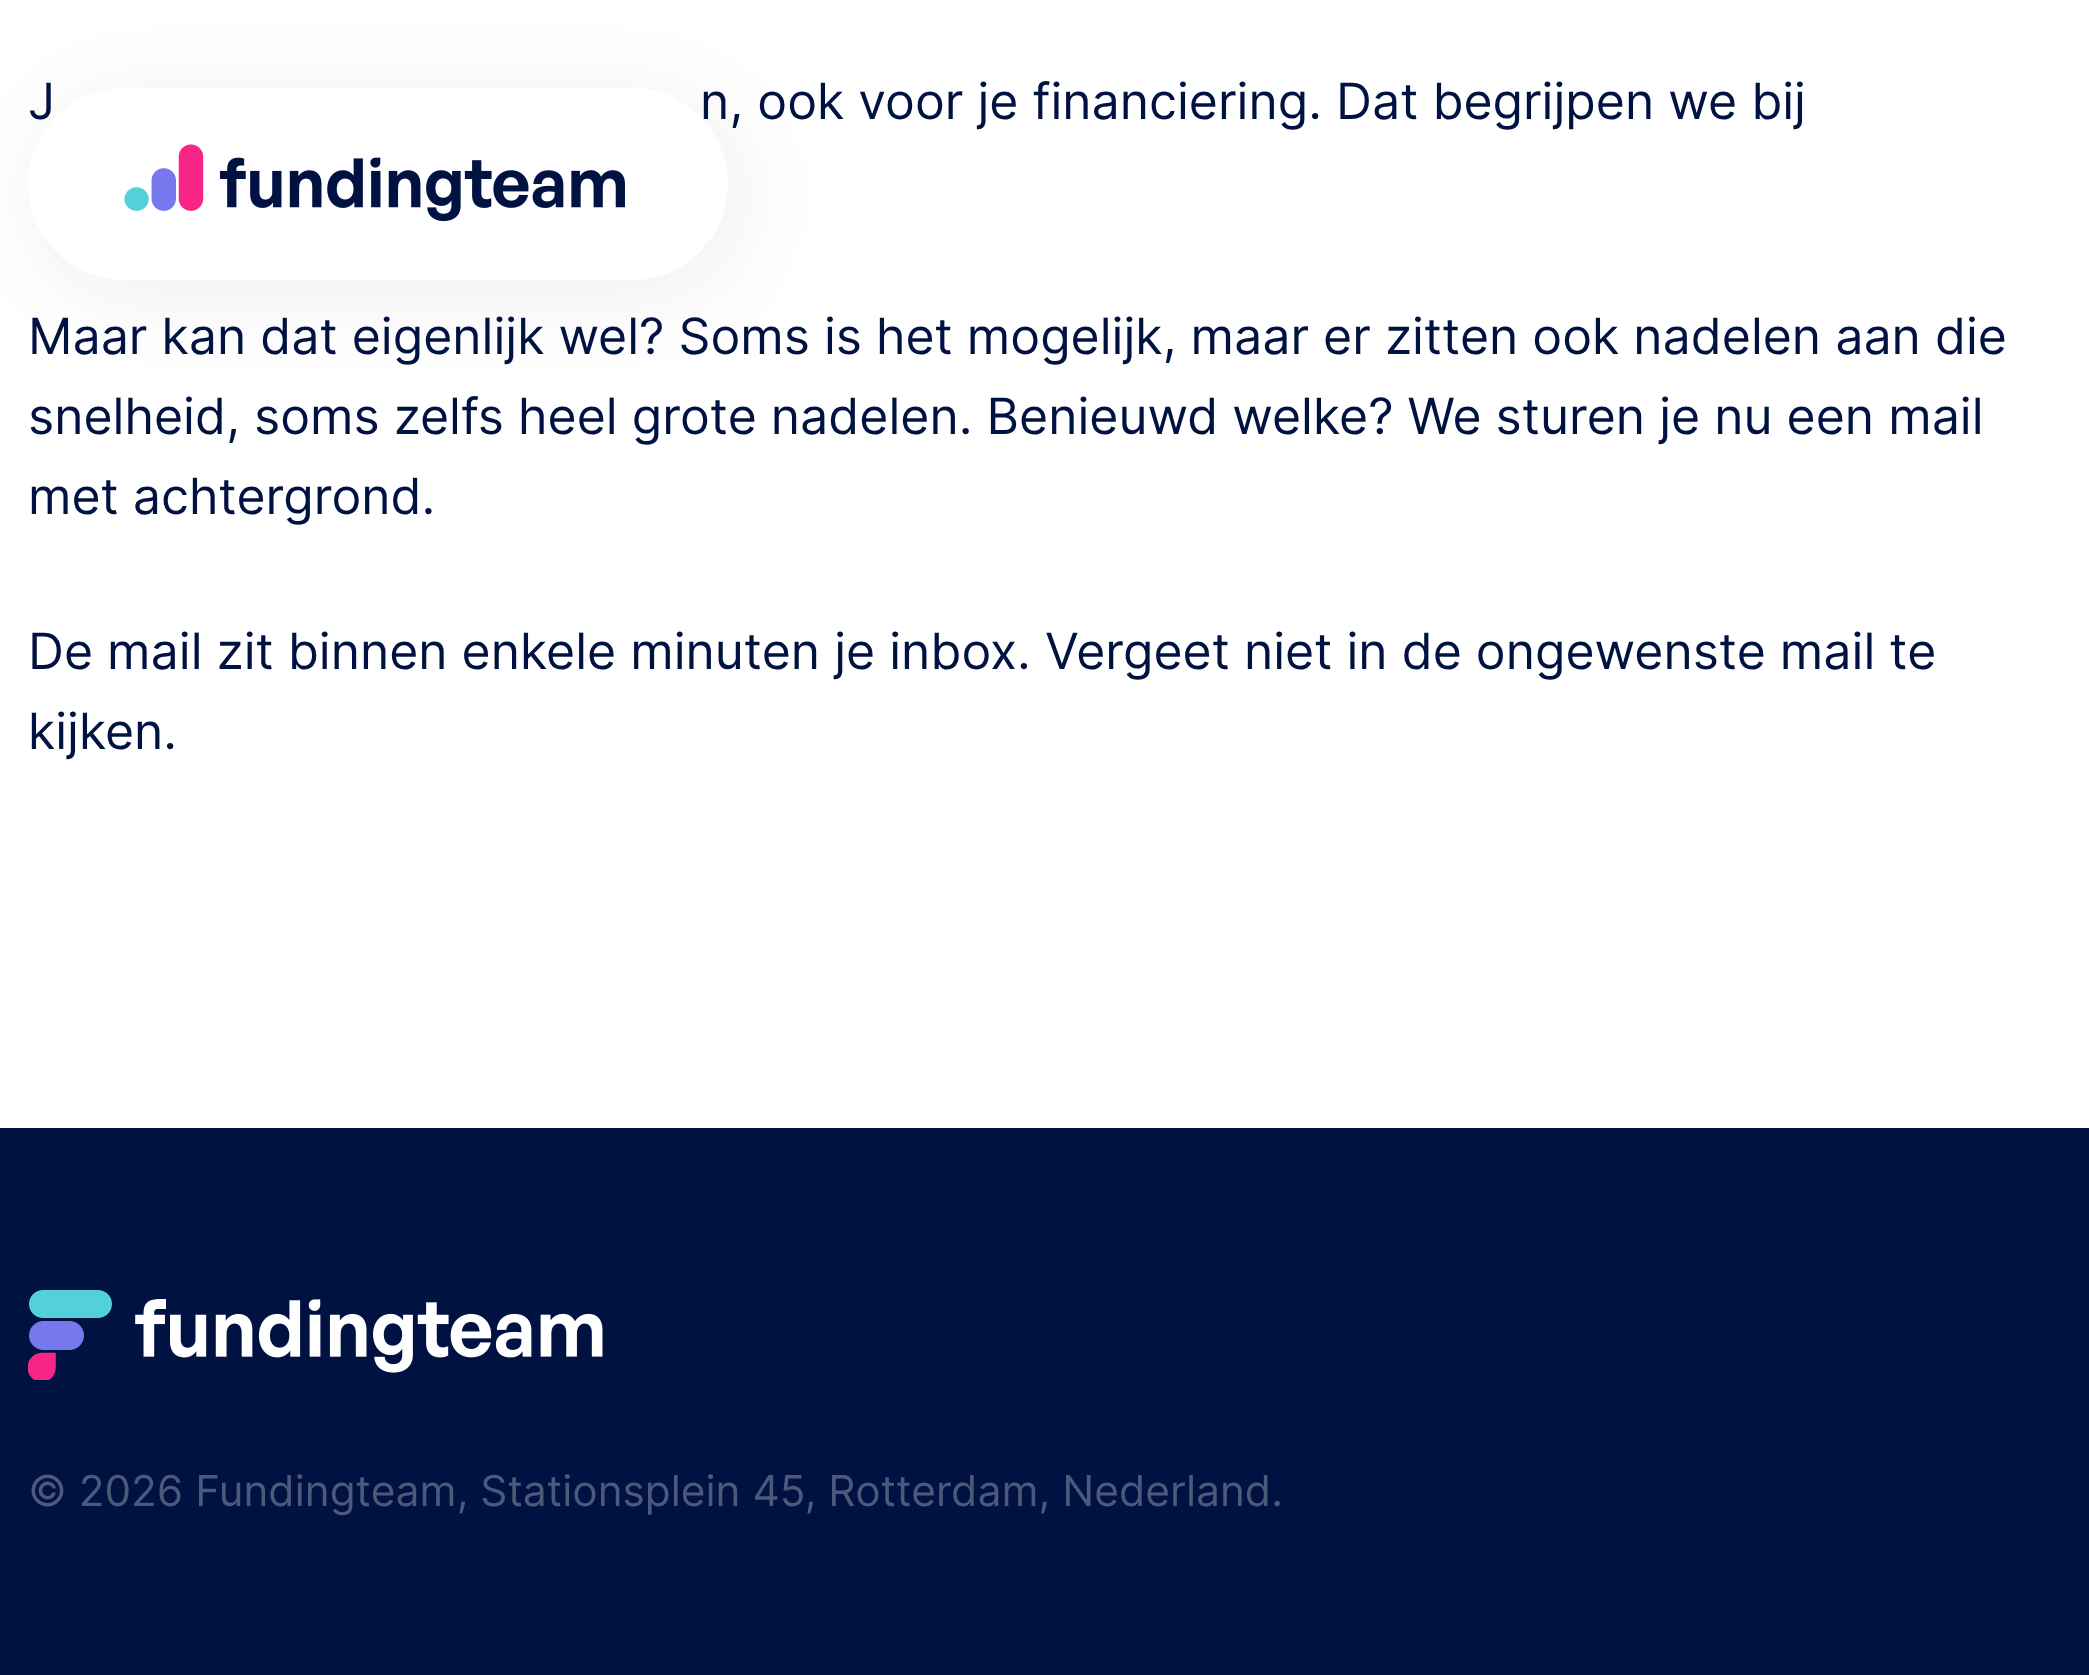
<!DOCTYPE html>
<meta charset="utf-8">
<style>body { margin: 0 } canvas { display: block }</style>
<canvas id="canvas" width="2089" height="1675"></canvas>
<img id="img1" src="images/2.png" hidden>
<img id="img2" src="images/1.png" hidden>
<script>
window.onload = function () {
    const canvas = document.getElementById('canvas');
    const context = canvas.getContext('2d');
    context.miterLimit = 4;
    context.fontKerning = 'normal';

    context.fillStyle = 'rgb(255, 255, 255)';
    context.fillRect(0, 0, 2089, 1675);
    context.fillStyle = 'rgba(18, 9, 58, 0.07)';
    context.filter = 'blur(42.5px)';
    context.beginPath();
    context.roundRect(40, 100, 700, 193, 96.5);
    context.fill();
    context.filter = 'none';
    context.fillStyle = 'rgb(0, 18, 66)';
    context.fillRect(0, 1128, 2089, 547);
    context.drawImage(document.getElementById('img1'), 28, 1290, 575, 90);
    context.font = '50px Inter';
    context.fillText('J', 28, 119);
    context.fillText('n, ook voor je financiering. Dat begrijpen we bij', 700, 119);
    context.fillStyle = 'rgb(255, 255, 255)';
    context.beginPath();
    context.roundRect(28, 88, 700, 192, 96);
    context.fill();
    context.drawImage(document.getElementById('img2'), 124, 144, 501, 78);
    context.fillStyle = 'rgb(0, 18, 66)';
    context.fillText('Maar kan dat eigenlijk wel? Soms is het mogelijk, maar er zitten ook nadelen aan die', 28, 354);
    context.fillText('snelheid, soms zelfs heel grote nadelen. Benieuwd welke? We sturen je nu een mail', 28, 434);
    context.fillText('met achtergrond.', 28, 514);
    context.fillText('De mail zit binnen enkele minuten je inbox. Vergeet niet in de ongewenste mail te', 28, 669);
    context.fillText('kijken.', 28, 749);
    context.font = '42.5px Inter';
    context.fillStyle = 'rgb(77, 89, 123)';
    context.fillText('© 2026 Fundingteam, Stationsplein 45, Rotterdam, Nederland.', 28, 1506);
};
</script>
